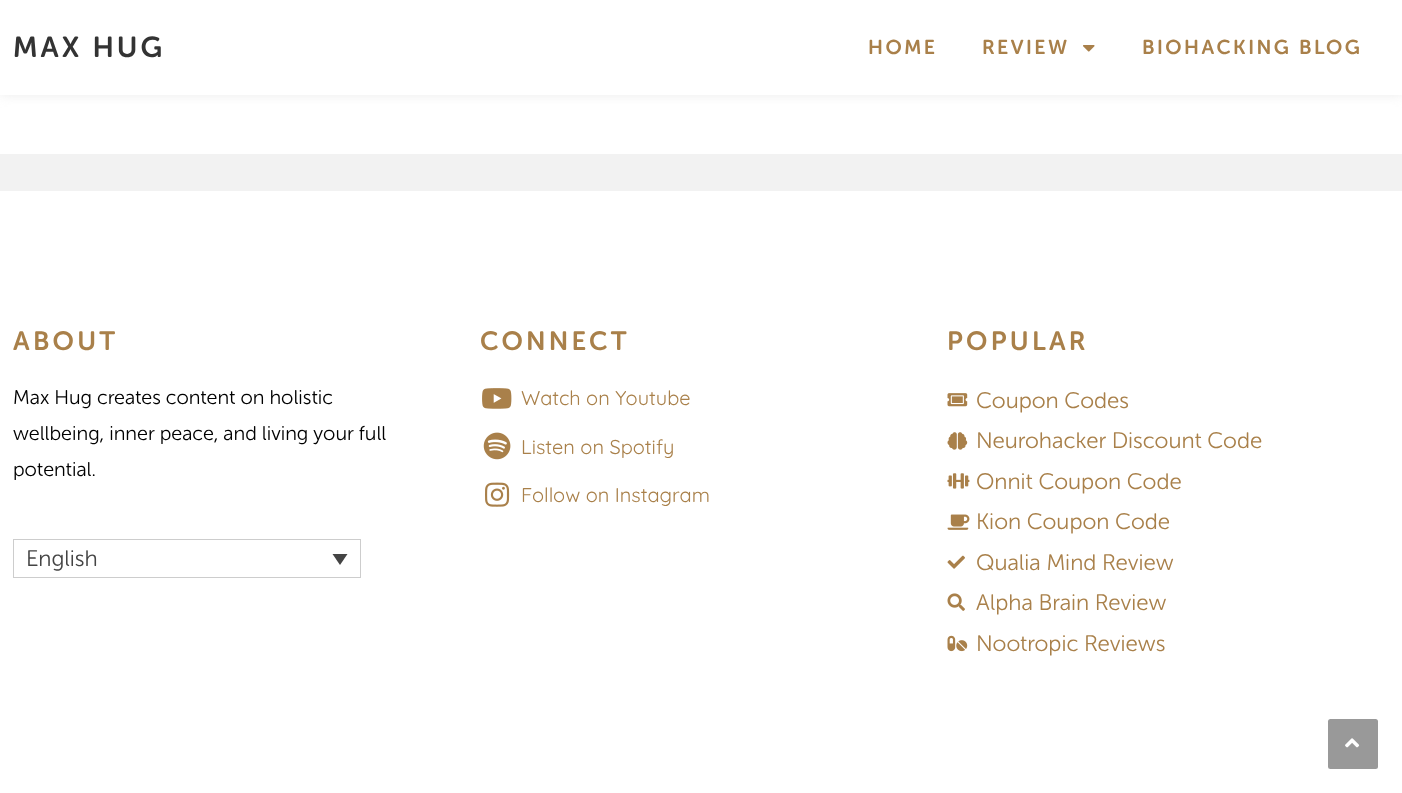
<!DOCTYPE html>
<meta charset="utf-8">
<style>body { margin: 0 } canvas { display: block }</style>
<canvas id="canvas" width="1402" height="793"></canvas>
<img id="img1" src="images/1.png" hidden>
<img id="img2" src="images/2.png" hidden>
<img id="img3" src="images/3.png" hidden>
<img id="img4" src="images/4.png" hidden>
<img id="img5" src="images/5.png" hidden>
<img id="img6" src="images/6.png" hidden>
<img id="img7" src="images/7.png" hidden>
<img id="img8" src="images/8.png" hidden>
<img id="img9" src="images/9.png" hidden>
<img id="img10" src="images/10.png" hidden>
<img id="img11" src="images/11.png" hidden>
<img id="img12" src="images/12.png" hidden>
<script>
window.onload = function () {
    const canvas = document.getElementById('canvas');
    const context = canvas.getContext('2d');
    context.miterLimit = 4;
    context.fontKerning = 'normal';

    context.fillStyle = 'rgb(255, 255, 255)';
    context.fillRect(0, 0, 1402, 793);
    context.fillStyle = 'rgba(217, 217, 217, 0.5)';
    context.filter = 'blur(6px)';
    context.beginPath();
    context.rect(0, 0, 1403, 95);
    context.fill();
    context.filter = 'none';
    context.fillStyle = 'rgb(255, 255, 255)';
    context.fillRect(0, 0, 1402, 95);
    context.drawImage(document.getElementById('img1'), 1083, 45, 12, 7);
    context.fillStyle = 'rgb(242, 242, 242)';
    context.fillRect(0, 154, 1402, 37);
    context.strokeStyle = 'rgb(205, 205, 205)';
    context.strokeRect(13.5, 539.5, 347, 38);
    context.fillStyle = 'rgb(68, 68, 68)';
    context.beginPath();
    context.moveTo(332.5, 554);
    context.lineTo(347.5, 554);
    context.lineTo(340, 565);
    context.closePath();
    context.fill();
    context.drawImage(document.getElementById('img2'), 482, 388, 30, 21);
    context.drawImage(document.getElementById('img3'), 483, 432, 28, 28);
    context.drawImage(document.getElementById('img4'), 485, 482, 25, 25);
    context.drawImage(document.getElementById('img5'), 947, 393, 21, 14);
    context.drawImage(document.getElementById('img6'), 947, 432, 21, 18);
    context.drawImage(document.getElementById('img7'), 947, 473, 23, 16);
    context.drawImage(document.getElementById('img8'), 947, 514, 23, 16);
    context.drawImage(document.getElementById('img9'), 947, 555, 18, 14);
    context.drawImage(document.getElementById('img10'), 947, 593, 18, 18);
    context.drawImage(document.getElementById('img11'), 947, 635, 21, 17);
    context.fillStyle = 'rgb(153, 153, 153)';
    context.beginPath();
    context.roundRect(1328, 719, 50, 50, 2.5);
    context.fill();
    context.drawImage(document.getElementById('img12'), 1345, 738, 15, 10);
    context.letterSpacing = '3px';
    context.font = '600 28.75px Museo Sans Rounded';
    context.fillStyle = 'rgb(51, 51, 51)';
    context.fillText('MAX HUG', 13, 57);
    context.letterSpacing = '2.5px';
    context.font = '600 20px Museo Sans Rounded';
    context.fillStyle = 'rgb(169, 128, 74)';
    context.fillText('HOME', 868, 54);
    context.fillText('REVIEW', 982, 54);
    context.fillText('BIOHACKING BLOG', 1142, 54);
    context.letterSpacing = '3.25px';
    context.font = '600 26.25px Museo Sans Rounded';
    context.fillText('ABOUT', 13, 350);
    context.letterSpacing = '0px';
    context.font = '300 20px Museo Sans Rounded';
    context.fillStyle = 'rgb(0, 0, 0)';
    context.fillText('Max Hug creates content on holistic', 13, 404);
    context.fillText('wellbeing, inner peace, and living your full', 13, 440);
    context.fillText('potential.', 13, 476);
    context.font = '300 22.5px Museo Sans Rounded';
    context.fillStyle = 'rgb(68, 68, 68)';
    context.fillText('English', 26, 566);
    context.letterSpacing = '3.25px';
    context.font = '600 26.25px Museo Sans Rounded';
    context.fillStyle = 'rgb(169, 128, 74)';
    context.fillText('CONNECT', 480, 350);
    context.letterSpacing = '0px';
    context.font = '20px Quicksand';
    context.fillText('Watch on Youtube', 521, 405);
    context.fillText('Listen on Spotify', 521, 454);
    context.fillText('Follow on Instagram', 521, 502);
    context.letterSpacing = '3.25px';
    context.font = '600 26.25px Museo Sans Rounded';
    context.fillText('POPULAR', 947, 350);
    context.letterSpacing = '0px';
    context.font = '300 22.5px Museo Sans Rounded';
    context.fillText('Coupon Codes', 976, 408);
    context.fillText('Neurohacker Discount Code', 976, 448);
    context.fillText('Onnit Coupon Code', 976, 489);
    context.fillText('Kion Coupon Code', 976, 529);
    context.fillText('Qualia Mind Review', 976, 570);
    context.fillText('Alpha Brain Review', 976, 610);
    context.fillText('Nootropic Reviews', 976, 651);
};
</script>
